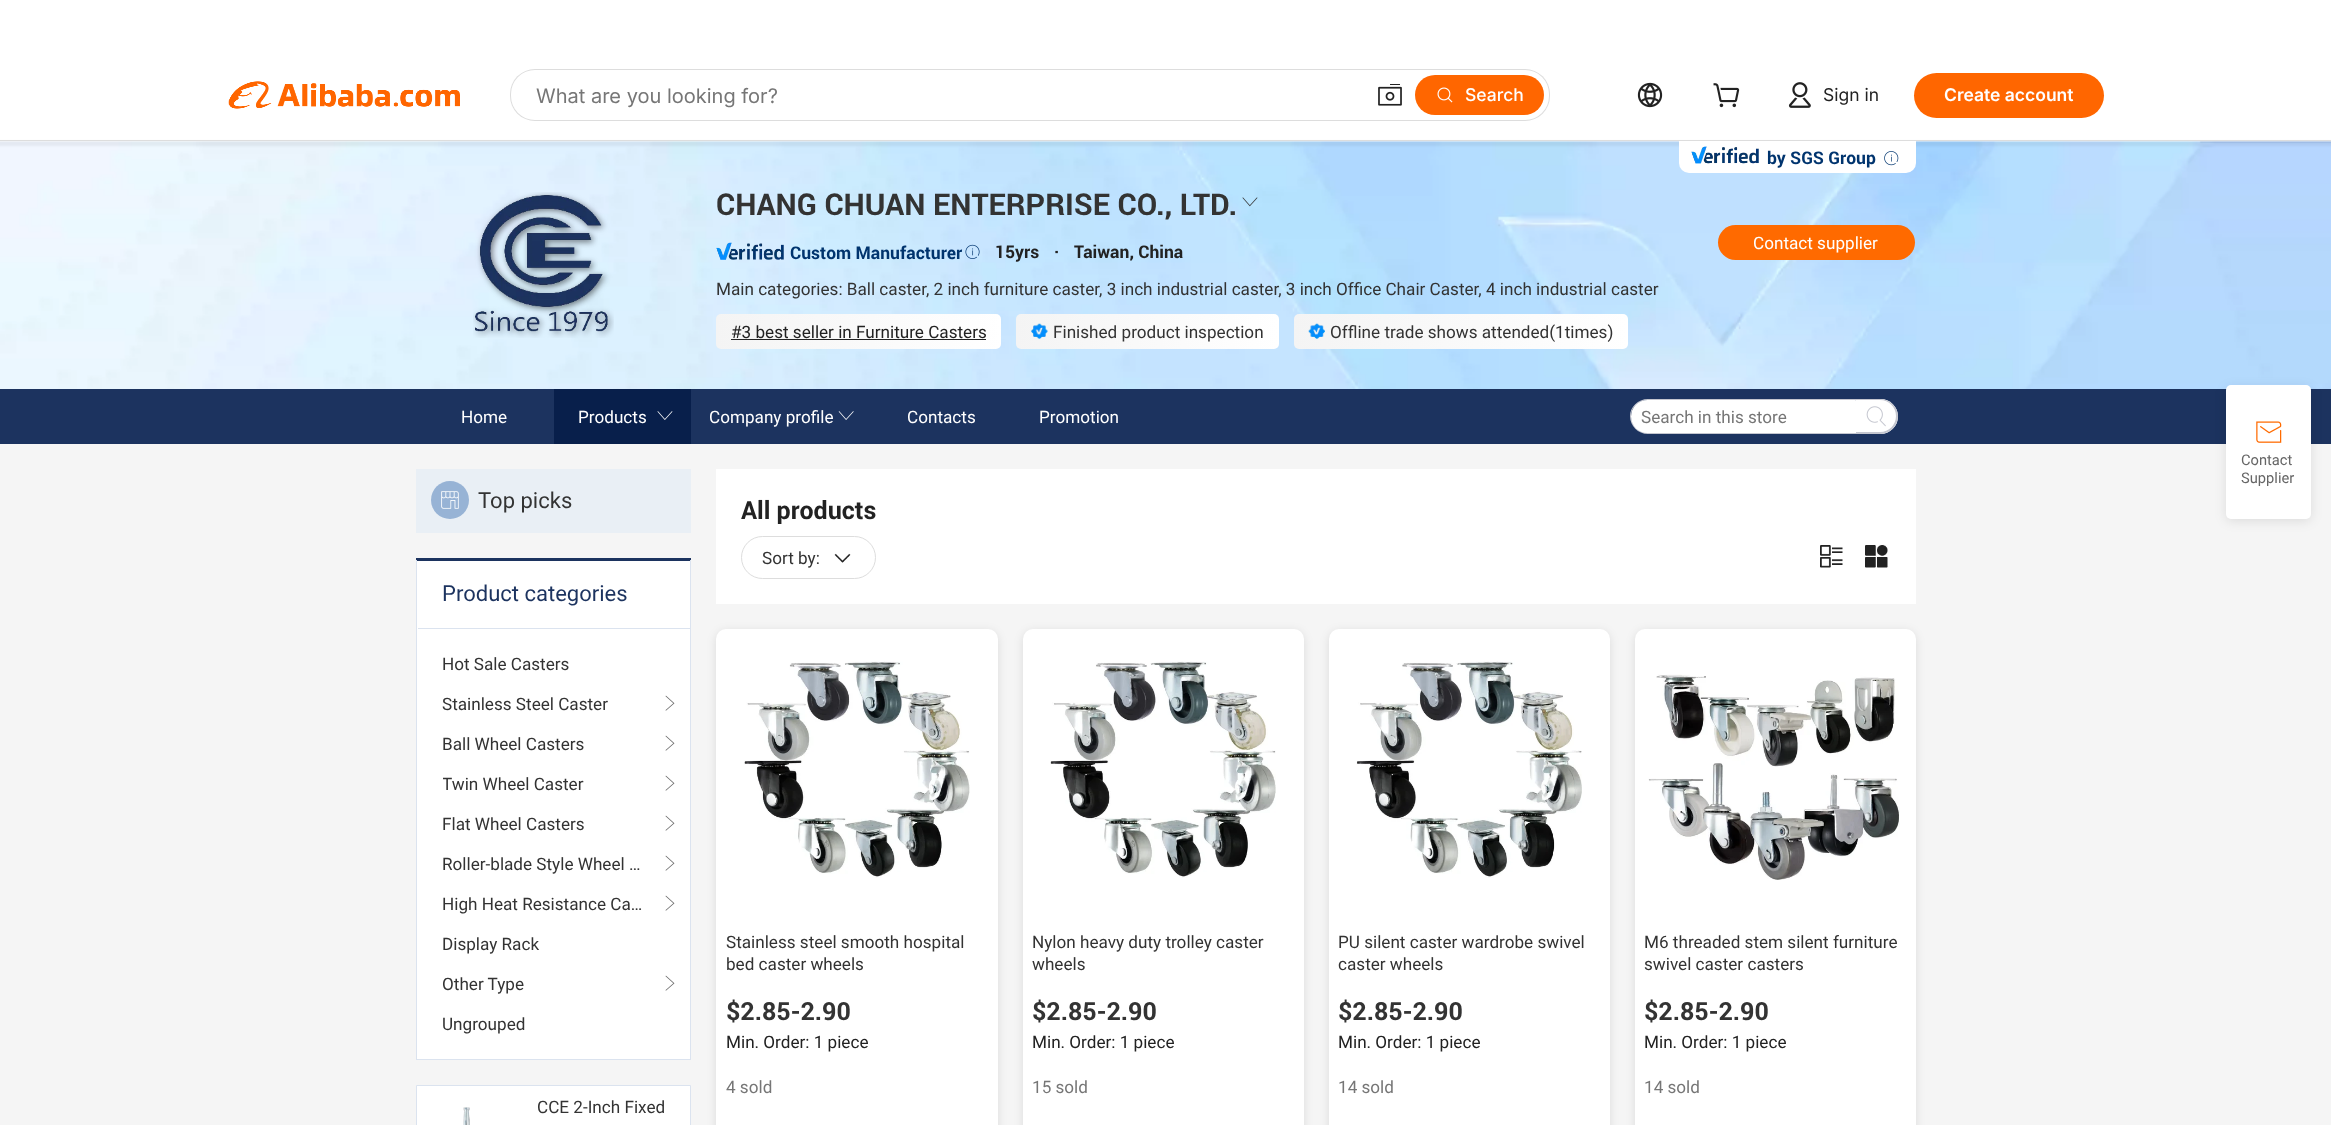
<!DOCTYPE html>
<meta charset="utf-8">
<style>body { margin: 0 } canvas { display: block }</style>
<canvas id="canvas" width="2331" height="1125"></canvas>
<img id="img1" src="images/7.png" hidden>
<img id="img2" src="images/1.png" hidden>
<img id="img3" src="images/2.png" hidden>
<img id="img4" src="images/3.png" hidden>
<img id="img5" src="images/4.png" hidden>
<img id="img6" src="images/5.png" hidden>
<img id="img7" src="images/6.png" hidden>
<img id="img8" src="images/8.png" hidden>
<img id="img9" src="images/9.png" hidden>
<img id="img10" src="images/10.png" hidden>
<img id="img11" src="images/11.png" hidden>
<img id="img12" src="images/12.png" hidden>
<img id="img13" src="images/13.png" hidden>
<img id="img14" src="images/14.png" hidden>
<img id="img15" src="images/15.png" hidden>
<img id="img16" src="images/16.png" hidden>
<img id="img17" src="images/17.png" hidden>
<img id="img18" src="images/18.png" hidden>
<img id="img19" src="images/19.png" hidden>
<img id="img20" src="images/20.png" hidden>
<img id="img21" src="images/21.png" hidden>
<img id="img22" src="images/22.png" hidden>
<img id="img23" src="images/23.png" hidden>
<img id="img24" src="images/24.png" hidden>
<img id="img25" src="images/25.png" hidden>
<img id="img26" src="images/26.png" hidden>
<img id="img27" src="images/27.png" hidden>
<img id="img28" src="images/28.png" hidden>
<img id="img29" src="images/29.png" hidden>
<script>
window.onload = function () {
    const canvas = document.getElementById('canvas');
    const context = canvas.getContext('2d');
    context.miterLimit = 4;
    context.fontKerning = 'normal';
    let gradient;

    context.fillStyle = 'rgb(255, 255, 255)';
    context.fillRect(0, 0, 2331, 1125);
    context.drawImage(document.getElementById('img1'), 0, 141, 2331, 248);
    context.fillStyle = 'rgba(0, 0, 0, 0.05)';
    context.filter = 'blur(1px)';
    context.beginPath();
    context.rect(-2, 141, 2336, 5);
    context.fill();
    context.filter = 'none';
    context.fillStyle = 'rgb(221, 221, 221)';
    context.fillRect(0, 140, 2331, 1);
    context.drawImage(document.getElementById('img2'), 228, 81, 232, 28);
    context.beginPath();
    context.roundRect(510, 69, 1040, 52, 25);
    context.fill();
    context.fillStyle = 'rgb(255, 255, 255)';
    context.beginPath();
    context.roundRect(511, 70, 1038, 50, 24);
    context.fill();
    context.drawImage(document.getElementById('img3'), 1378, 84, 24, 22);
    context.fillStyle = 'rgb(255, 102, 0)';
    context.beginPath();
    context.roundRect(1415, 75, 129, 40, 20);
    context.fill();
    context.drawImage(document.getElementById('img4'), 1437, 87, 16, 16);
    context.drawImage(document.getElementById('img5'), 1637, 82, 26, 26);
    context.drawImage(document.getElementById('img6'), 1713, 83, 27, 25);
    context.drawImage(document.getElementById('img7'), 1788, 82, 23, 26);
    context.beginPath();
    context.roundRect(1914, 73, 190, 45, 22.5);
    context.fill();
    context.fillStyle = 'rgb(255, 255, 255)';
    context.beginPath();
    context.roundRect(1679, 141, 237, 32, [0, 0, 10, 10]);
    context.fill();
    context.drawImage(document.getElementById('img8'), 1691, 146, 68, 18);
    context.drawImage(document.getElementById('img9'), 1884, 151, 15, 15);
    context.drawImage(document.getElementById('img10'), 473, 192, 141, 146);
    context.drawImage(document.getElementById('img11'), 1242, 197, 16, 10);
    context.drawImage(document.getElementById('img12'), 716, 242, 68, 18);
    context.drawImage(document.getElementById('img13'), 965, 244, 15, 15);
    gradient = context.createLinearGradient(1001, 331, 716, 331);
    gradient.addColorStop(0, 'rgb(255, 255, 255)');
    gradient.addColorStop(1, 'rgb(244, 244, 244)');
    context.fillStyle = gradient;
    context.beginPath();
    context.roundRect(716, 314, 285, 35, 5);
    context.fill();
    context.fillStyle = 'rgb(34, 34, 34)';
    context.fillRect(731, 339, 255, 1);
    gradient = context.createLinearGradient(1279, 331, 1016, 331);
    gradient.addColorStop(0, 'rgb(255, 255, 255)');
    gradient.addColorStop(1, 'rgb(244, 244, 244)');
    context.fillStyle = gradient;
    context.beginPath();
    context.roundRect(1016, 314, 263, 35, 5);
    context.fill();
    context.drawImage(document.getElementById('img14'), 1031, 323, 17, 16);
    gradient = context.createLinearGradient(1628, 331, 1294, 331);
    gradient.addColorStop(0, 'rgb(255, 255, 255)');
    gradient.addColorStop(1, 'rgb(244, 244, 244)');
    context.fillStyle = gradient;
    context.beginPath();
    context.roundRect(1294, 314, 334, 35, 5);
    context.fill();
    context.drawImage(document.getElementById('img15'), 1308, 323, 17, 16);
    context.fillStyle = 'rgb(255, 106, 0)';
    context.beginPath();
    context.roundRect(1718, 225, 197, 35, 17.5);
    context.fill();
    context.fillStyle = 'rgb(28, 51, 95)';
    context.fillRect(0, 389, 2331, 55);
    context.fillStyle = 'rgb(8, 31, 75)';
    context.fillRect(554, 389, 137, 55);
    context.drawImage(document.getElementById('img16'), 657, 411, 16, 9);
    context.drawImage(document.getElementById('img17'), 838, 411, 16, 9);
    context.fillStyle = 'rgb(196, 198, 207)';
    context.beginPath();
    context.moveTo(1648, 399);
    context.lineTo(1856, 399);
    context.lineTo(1856, 434);
    context.lineTo(1648, 434);
    context.bezierCurveTo(1638, 434, 1630, 426, 1630, 416);
    context.bezierCurveTo(1630, 407, 1638, 399, 1648, 399);
    context.closePath();
    context.moveTo(1648, 400);
    context.lineTo(1856, 400);
    context.lineTo(1856, 432);
    context.lineTo(1648, 432);
    context.bezierCurveTo(1639, 432, 1631, 425, 1631, 416);
    context.bezierCurveTo(1631, 407, 1639, 400, 1648, 400);
    context.closePath();
    context.fill('evenodd');
    context.fillStyle = 'rgb(255, 255, 255)';
    context.beginPath();
    context.roundRect(1631, 400, 225, 33, [16.5, 0.5, 0.5, 16.5]);
    context.fill();
    context.beginPath();
    context.roundRect(1856, 399, 42, 35, [0, 17.5, 17.5, 0]);
    context.fill();
    context.fillStyle = 'rgb(196, 198, 207)';
    context.beginPath();
    context.moveTo(1856, 399);
    context.lineTo(1880, 399);
    context.bezierCurveTo(1890, 399, 1898, 407, 1898, 416);
    context.bezierCurveTo(1898, 426, 1890, 434, 1880, 434);
    context.lineTo(1856, 434);
    context.closePath();
    context.moveTo(1856, 400);
    context.lineTo(1880, 400);
    context.bezierCurveTo(1889, 400, 1896, 407, 1896, 416);
    context.bezierCurveTo(1896, 425, 1889, 432, 1880, 432);
    context.lineTo(1856, 432);
    context.closePath();
    context.fill('evenodd');
    context.drawImage(document.getElementById('img18'), 1866, 406, 20, 21);
    context.fillStyle = 'rgb(245, 245, 245)';
    context.fillRect(0, 444, 2331, 681);
    context.fillStyle = 'rgb(233, 239, 245)';
    context.fillRect(416, 469, 275, 64);
    context.fillStyle = 'rgb(151, 179, 213)';
    context.beginPath();
    context.arc(450, 500, 19, 0, 2 * Math.PI);
    context.fill();
    context.drawImage(document.getElementById('img19'), 441, 491, 18, 18);
    context.fillStyle = 'rgb(255, 255, 255)';
    context.fillRect(417, 561, 273, 498);
    context.fillStyle = 'rgb(28, 51, 95)';
    context.fillRect(416, 558, 275, 3);
    context.fillStyle = 'rgb(219, 227, 239)';
    context.fillRect(690, 560, 1, 500);
    context.fillRect(416, 1059, 275, 1);
    context.fillRect(416, 560, 1, 500);
    context.fillRect(418, 628, 272, 1);
    context.drawImage(document.getElementById('img20'), 665, 695, 10, 16);
    context.drawImage(document.getElementById('img20'), 665, 735, 10, 16);
    context.drawImage(document.getElementById('img20'), 665, 775, 10, 16);
    context.drawImage(document.getElementById('img20'), 665, 815, 10, 16);
    context.drawImage(document.getElementById('img20'), 665, 855, 10, 16);
    context.drawImage(document.getElementById('img20'), 665, 895, 10, 16);
    context.drawImage(document.getElementById('img20'), 665, 975, 10, 16);
    context.fillStyle = 'rgb(255, 255, 255)';
    context.beginPath();
    context.rect(416.5, 1085.5, 274, 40);
    context.fill();
    context.strokeStyle = 'rgb(219, 227, 239)';
    context.stroke();
    context.drawImage(document.getElementById('img21'), 463, 1107, 7, 18);
    context.fillRect(716, 469, 1200, 135);
    context.beginPath();
    context.roundRect(741.5, 536.5, 134, 42, 21);
    context.strokeStyle = 'rgb(221, 221, 221)';
    context.stroke();
    context.drawImage(document.getElementById('img22'), 834, 553, 17, 10);
    context.drawImage(document.getElementById('img23'), 1820, 545, 23, 23);
    context.drawImage(document.getElementById('img24'), 1865, 544, 24, 24);
    context.fillStyle = 'rgba(0, 0, 0, 0.1)';
    context.filter = 'blur(5px)';
    context.beginPath();
    context.roundRect(716, 631, 282, 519, 10);
    context.fill();
    context.filter = 'none';
    context.fillStyle = 'rgb(255, 255, 255)';
    context.beginPath();
    context.roundRect(716, 629, 282, 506, 10);
    context.fill();
    context.drawImage(document.getElementById('img25'), 744, 661, 226, 217);
    context.fillStyle = 'rgba(0, 0, 0, 0.1)';
    context.filter = 'blur(5px)';
    context.beginPath();
    context.roundRect(1023, 631, 281, 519, 10);
    context.fill();
    context.filter = 'none';
    context.fillStyle = 'rgb(255, 255, 255)';
    context.beginPath();
    context.roundRect(1023, 629, 281, 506, 10);
    context.fill();
    context.drawImage(document.getElementById('img26'), 1050, 661, 226, 217);
    context.fillStyle = 'rgba(0, 0, 0, 0.1)';
    context.filter = 'blur(5px)';
    context.beginPath();
    context.roundRect(1329, 631, 281, 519, 10);
    context.fill();
    context.filter = 'none';
    context.fillStyle = 'rgb(255, 255, 255)';
    context.beginPath();
    context.roundRect(1329, 629, 281, 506, 10);
    context.fill();
    context.drawImage(document.getElementById('img27'), 1356, 661, 226, 217);
    context.fillStyle = 'rgba(0, 0, 0, 0.1)';
    context.filter = 'blur(5px)';
    context.beginPath();
    context.roundRect(1635, 631, 281, 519, 10);
    context.fill();
    context.filter = 'none';
    context.fillStyle = 'rgb(255, 255, 255)';
    context.beginPath();
    context.roundRect(1635, 629, 281, 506, 10);
    context.fill();
    context.drawImage(document.getElementById('img28'), 1648, 674, 252, 206);
    context.fillStyle = 'rgba(0, 0, 0, 0.1)';
    context.filter = 'blur(6px)';
    context.beginPath();
    context.roundRect(2226, 388, 85, 133, 5);
    context.fill();
    context.filter = 'none';
    context.fillStyle = 'rgb(255, 255, 255)';
    context.beginPath();
    context.roundRect(2226, 385, 85, 134, 5);
    context.fill();
    context.drawImage(document.getElementById('img29'), 2256, 421, 26, 22);
    context.font = '20px Inter';
    context.fillStyle = 'rgb(118, 118, 118)';
    context.fillText('What are you looking for?', 536, 103);
    context.font = '500 17.5px Inter';
    context.fillStyle = 'rgb(255, 255, 255)';
    context.fillText('Search', 1465, 101);
    context.font = '17.5px Inter';
    context.fillStyle = 'rgb(34, 34, 34)';
    context.fillText('Sign in', 1823, 101);
    context.font = '600 17.5px Inter';
    context.fillStyle = 'rgb(255, 255, 255)';
    context.fillText('Create account', 1944, 101);
    context.font = 'bold 17.5px Roboto';
    context.fillStyle = 'rgb(0, 52, 110)';
    context.fillText('by SGS Group', 1767, 164);
    context.font = 'bold 30px Roboto';
    context.fillStyle = 'rgb(51, 51, 51)';
    context.fillText('CHANG CHUAN ENTERPRISE CO., LTD.', 716, 215);
    context.font = 'bold 17.5px Roboto';
    context.fillStyle = 'rgb(0, 52, 110)';
    context.fillText('Custom Manufacturer', 790, 259);
    context.fillStyle = 'rgb(34, 34, 34)';
    context.fillText('15yrs', 995, 258);
    context.fillText('·', 1054, 258);
    context.fillText('Taiwan, China', 1074, 258);
    context.font = '17.5px Roboto';
    context.fillStyle = 'rgb(51, 51, 51)';
    context.fillText('Main categories: Ball caster, 2 inch furniture caster, 3 inch industrial caster, 3 inch Office Chair Caster, 4 inch industrial caster', 716, 295);
    context.fillStyle = 'rgb(34, 34, 34)';
    context.fillText('#3 best seller in Furniture Casters', 731, 338);
    context.fillStyle = 'rgb(51, 51, 51)';
    context.fillText('Finished product inspection', 1053, 338);
    context.fillText('Offline trade shows attended(1times)', 1330, 338);
    context.fillStyle = 'rgb(255, 255, 255)';
    context.fillText('Contact supplier', 1753, 249);
    context.fillText('Home', 461, 423);
    context.fillText('Products', 578, 423);
    context.fillText('Company profile', 709, 423);
    context.fillText('Contacts', 907, 423);
    context.fillText('Promotion', 1039, 423);
    context.fillStyle = 'rgb(118, 118, 118)';
    context.fillText('Search in this store', 1641, 423);
    context.font = '22.5px Roboto';
    context.fillStyle = 'rgb(51, 51, 51)';
    context.fillText('Top picks', 478, 508);
    context.fillStyle = 'rgb(28, 51, 95)';
    context.fillText('Product categories', 442, 601);
    context.font = '17.5px Roboto';
    context.fillStyle = 'rgb(51, 51, 51)';
    context.fillText('Hot Sale Casters', 442, 670);
    context.fillText('Stainless Steel Caster', 442, 710);
    context.fillText('Ball Wheel Casters', 442, 750);
    context.save();
    context.beginPath();
    context.rect(443, 764, 222, 40);
    context.clip();
    context.fillText('Twin Wheel Caster', 442, 790);
    context.restore();
    context.fillText('Flat Wheel Casters', 442, 830);
    context.fillText('Roller-blade Style Wheel …', 442, 870);
    context.fillText('High Heat Resistance Ca…', 442, 910);
    context.fillText('Display Rack', 442, 950);
    context.fillText('Other Type', 442, 990);
    context.fillText('Ungrouped', 442, 1030);
    context.fillText('CCE 2-Inch Fixed', 537, 1113);
    context.font = 'bold 25px Roboto';
    context.fillStyle = 'rgb(34, 34, 34)';
    context.fillText('All products', 741, 519);
    context.font = '17.5px Roboto';
    context.fillStyle = 'rgb(51, 51, 51)';
    context.fillText('Sort by:', 762, 564);
    context.fillText('Stainless steel smooth hospital', 726, 948);
    context.fillText('bed caster wheels', 726, 970);
    context.font = 'bold 25px Roboto';
    context.fillText('$2.85-2.90', 726, 1020);
    context.font = '17.5px Roboto';
    context.fillStyle = 'rgb(34, 34, 34)';
    context.fillText('Min. Order: 1 piece', 726, 1048);
    context.fillStyle = 'rgb(118, 118, 118)';
    context.fillText('4 sold', 726, 1093);
    context.fillStyle = 'rgb(51, 51, 51)';
    context.fillText('Nylon heavy duty trolley caster', 1032, 948);
    context.fillText('wheels', 1032, 970);
    context.font = 'bold 25px Roboto';
    context.fillText('$2.85-2.90', 1032, 1020);
    context.font = '17.5px Roboto';
    context.fillStyle = 'rgb(34, 34, 34)';
    context.fillText('Min. Order: 1 piece', 1032, 1048);
    context.fillStyle = 'rgb(118, 118, 118)';
    context.fillText('15 sold', 1032, 1093);
    context.fillStyle = 'rgb(51, 51, 51)';
    context.fillText('PU silent caster wardrobe swivel', 1338, 948);
    context.fillText('caster wheels', 1338, 970);
    context.font = 'bold 25px Roboto';
    context.fillText('$2.85-2.90', 1338, 1020);
    context.font = '17.5px Roboto';
    context.fillStyle = 'rgb(34, 34, 34)';
    context.fillText('Min. Order: 1 piece', 1338, 1048);
    context.fillStyle = 'rgb(118, 118, 118)';
    context.fillText('14 sold', 1338, 1093);
    context.fillStyle = 'rgb(51, 51, 51)';
    context.fillText('M6 threaded stem silent furniture', 1644, 948);
    context.fillText('swivel caster casters', 1644, 970);
    context.font = 'bold 25px Roboto';
    context.fillText('$2.85-2.90', 1644, 1020);
    context.font = '17.5px Roboto';
    context.fillStyle = 'rgb(34, 34, 34)';
    context.fillText('Min. Order: 1 piece', 1644, 1048);
    context.fillStyle = 'rgb(118, 118, 118)';
    context.fillText('14 sold', 1644, 1093);
    context.font = '15px Roboto';
    context.fillStyle = 'rgb(102, 102, 102)';
    context.fillText('Contact', 2241, 465);
    context.fillText('Supplier', 2241, 483);
};
</script>
